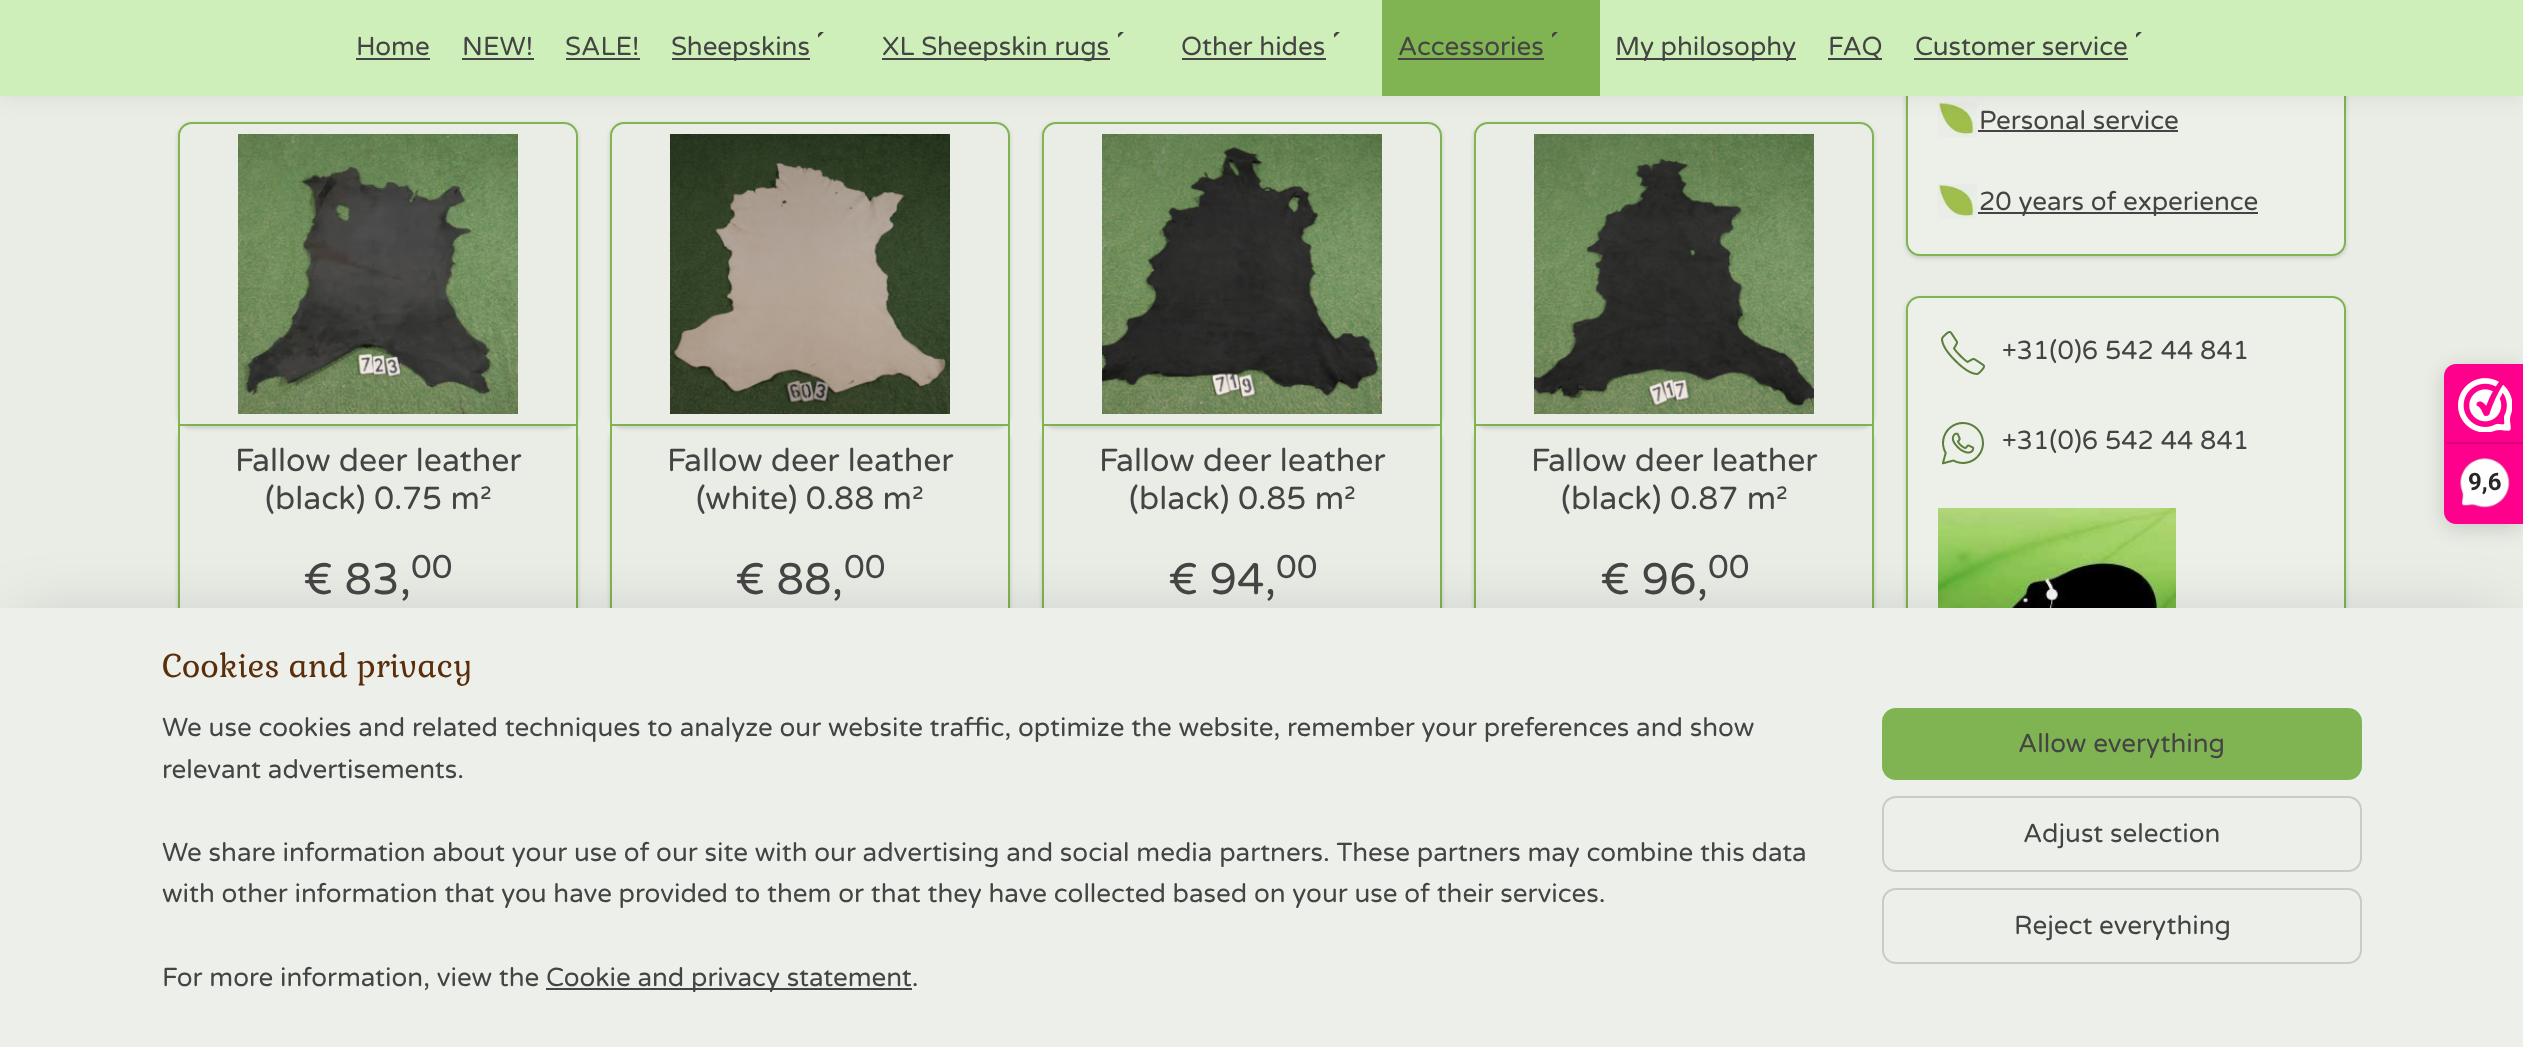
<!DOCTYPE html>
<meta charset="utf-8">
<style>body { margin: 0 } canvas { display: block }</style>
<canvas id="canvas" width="2523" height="1047"></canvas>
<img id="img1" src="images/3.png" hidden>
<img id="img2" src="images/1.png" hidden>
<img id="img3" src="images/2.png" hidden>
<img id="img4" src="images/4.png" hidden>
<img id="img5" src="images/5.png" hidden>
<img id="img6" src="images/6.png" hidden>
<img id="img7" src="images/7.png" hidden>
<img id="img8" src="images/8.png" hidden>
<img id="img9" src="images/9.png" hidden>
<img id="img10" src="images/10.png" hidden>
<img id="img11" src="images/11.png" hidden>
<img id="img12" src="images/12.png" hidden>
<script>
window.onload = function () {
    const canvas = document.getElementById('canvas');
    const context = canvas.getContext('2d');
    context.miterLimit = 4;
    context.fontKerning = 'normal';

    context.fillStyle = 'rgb(233, 237, 230)';
    context.fillRect(0, 0, 2523, 1047);
    context.fillStyle = 'rgba(0, 0, 0, 0.15)';
    context.filter = 'blur(2px)';
    context.beginPath();
    context.roundRect(1906, -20, 440, 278, 14);
    context.fill();
    context.filter = 'none';
    context.fillStyle = 'rgb(236, 240, 233)';
    context.beginPath();
    context.roundRect(1907, -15, 438, 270, 13);
    context.fill();
    context.strokeStyle = 'rgb(128, 179, 82)';
    context.lineWidth = 2;
    context.stroke();
    context.drawImage(document.getElementById('img1'), 1938, 102, 39, 35);
    context.fillStyle = 'rgb(68, 68, 68)';
    context.fillRect(1978, 130, 200, 2);
    context.save();
    context.beginPath();
    context.moveTo(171, 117);
    context.lineTo(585, 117);
    context.lineTo(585, 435);
    context.lineTo(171, 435);
    context.closePath();
    context.moveTo(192, 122);
    context.lineTo(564, 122);
    context.bezierCurveTo(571.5, 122, 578, 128.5, 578, 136);
    context.lineTo(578, 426);
    context.lineTo(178, 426);
    context.lineTo(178, 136);
    context.bezierCurveTo(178, 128.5, 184.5, 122, 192, 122);
    context.closePath();
    context.clip('evenodd');
    context.fillStyle = 'rgba(0, 0, 0, 0.15)';
    context.filter = 'blur(2px)';
    context.beginPath();
    context.roundRect(178, 124, 400, 304, 14);
    context.fill();
    context.filter = 'none';
    context.restore();
    context.beginPath();
    context.roundRect(179, 123, 398, 302, [13, 13, 0, 0]);
    context.stroke();
    context.save();
    context.beginPath();
    context.moveTo(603, 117);
    context.lineTo(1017, 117);
    context.lineTo(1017, 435);
    context.lineTo(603, 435);
    context.closePath();
    context.moveTo(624, 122);
    context.lineTo(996, 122);
    context.bezierCurveTo(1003.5, 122, 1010, 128.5, 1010, 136);
    context.lineTo(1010, 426);
    context.lineTo(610, 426);
    context.lineTo(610, 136);
    context.bezierCurveTo(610, 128.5, 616.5, 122, 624, 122);
    context.closePath();
    context.clip('evenodd');
    context.fillStyle = 'rgba(0, 0, 0, 0.15)';
    context.filter = 'blur(2px)';
    context.beginPath();
    context.roundRect(610, 124, 400, 304, 14);
    context.fill();
    context.filter = 'none';
    context.restore();
    context.beginPath();
    context.roundRect(611, 123, 398, 302, [13, 13, 0, 0]);
    context.stroke();
    context.save();
    context.beginPath();
    context.moveTo(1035, 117);
    context.lineTo(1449, 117);
    context.lineTo(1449, 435);
    context.lineTo(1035, 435);
    context.closePath();
    context.moveTo(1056, 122);
    context.lineTo(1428, 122);
    context.bezierCurveTo(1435.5, 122, 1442, 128.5, 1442, 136);
    context.lineTo(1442, 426);
    context.lineTo(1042, 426);
    context.lineTo(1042, 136);
    context.bezierCurveTo(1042, 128.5, 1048.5, 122, 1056, 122);
    context.closePath();
    context.clip('evenodd');
    context.fillStyle = 'rgba(0, 0, 0, 0.15)';
    context.filter = 'blur(2px)';
    context.beginPath();
    context.roundRect(1042, 124, 400, 304, 14);
    context.fill();
    context.filter = 'none';
    context.restore();
    context.beginPath();
    context.roundRect(1043, 123, 398, 302, [13, 13, 0, 0]);
    context.stroke();
    context.save();
    context.beginPath();
    context.moveTo(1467, 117);
    context.lineTo(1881, 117);
    context.lineTo(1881, 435);
    context.lineTo(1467, 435);
    context.closePath();
    context.moveTo(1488, 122);
    context.lineTo(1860, 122);
    context.bezierCurveTo(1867.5, 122, 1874, 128.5, 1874, 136);
    context.lineTo(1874, 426);
    context.lineTo(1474, 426);
    context.lineTo(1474, 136);
    context.bezierCurveTo(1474, 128.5, 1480.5, 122, 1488, 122);
    context.closePath();
    context.clip('evenodd');
    context.fillStyle = 'rgba(0, 0, 0, 0.15)';
    context.filter = 'blur(2px)';
    context.beginPath();
    context.roundRect(1474, 124, 400, 304, 14);
    context.fill();
    context.filter = 'none';
    context.restore();
    context.beginPath();
    context.roundRect(1475, 123, 398, 302, [13, 13, 0, 0]);
    context.stroke();
    context.fillStyle = 'rgba(0, 0, 0, 0.08)';
    context.filter = 'blur(12px)';
    context.beginPath();
    context.rect(0, 0, 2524, 96);
    context.fill();
    context.filter = 'none';
    context.fillStyle = 'rgb(206, 239, 185)';
    context.fillRect(0, 0, 2523, 96);
    context.fillStyle = 'rgb(68, 68, 68)';
    context.fillRect(356, 58, 74, 2);
    context.fillRect(462, 58, 72, 2);
    context.fillRect(566, 58, 74, 2);
    context.fillRect(672, 58, 138, 2);
    context.drawImage(document.getElementById('img2'), 818, 32, 6, 6);
    context.fillRect(882, 58, 228, 2);
    context.drawImage(document.getElementById('img2'), 1118, 32, 6, 6);
    context.fillRect(1182, 58, 144, 2);
    context.drawImage(document.getElementById('img2'), 1334, 32, 6, 6);
    context.fillStyle = 'rgb(128, 179, 82)';
    context.fillRect(1382, 0, 218, 96);
    context.drawImage(document.getElementById('img3'), 1552, 32, 6, 6);
    context.fillStyle = 'rgb(68, 68, 68)';
    context.fillRect(1398, 58, 146, 2);
    context.fillRect(1616, 58, 180, 2);
    context.fillRect(1828, 58, 54, 2);
    context.drawImage(document.getElementById('img2'), 2136, 32, 6, 6);
    context.fillRect(1914, 58, 214, 2);
    context.drawImage(document.getElementById('img1'), 1938, 184, 39, 35);
    context.fillRect(1978, 212, 280, 2);
    context.fillStyle = 'rgba(0, 0, 0, 0.15)';
    context.filter = 'blur(2px)';
    context.beginPath();
    context.roundRect(1906, 298, 440, 566, 14);
    context.fill();
    context.filter = 'none';
    context.fillStyle = 'rgb(236, 240, 233)';
    context.beginPath();
    context.roundRect(1907, 297, 438, 564, 13);
    context.fill();
    context.stroke();
    context.drawImage(document.getElementById('img4'), 1941, 331, 44, 44);
    context.drawImage(document.getElementById('img5'), 1942, 422, 42, 43);
    context.drawImage(document.getElementById('img6'), 1938, 508, 238, 100);
    context.drawImage(document.getElementById('img7'), 238, 134, 280, 280);
    context.save();
    context.beginPath();
    context.moveTo(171, 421);
    context.lineTo(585, 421);
    context.lineTo(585, 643);
    context.lineTo(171, 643);
    context.closePath();
    context.moveTo(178, 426);
    context.lineTo(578, 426);
    context.lineTo(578, 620);
    context.bezierCurveTo(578, 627.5, 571.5, 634, 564, 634);
    context.lineTo(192, 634);
    context.bezierCurveTo(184.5, 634, 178, 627.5, 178, 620);
    context.closePath();
    context.clip('evenodd');
    context.fillStyle = 'rgba(0, 0, 0, 0.15)';
    context.filter = 'blur(2px)';
    context.beginPath();
    context.roundRect(178, 428, 400, 208, 14);
    context.fill();
    context.filter = 'none';
    context.restore();
    context.fillStyle = 'rgb(128, 179, 82)';
    context.beginPath();
    context.moveTo(178, 426);
    context.lineTo(578, 426);
    context.lineTo(578, 620);
    context.bezierCurveTo(578, 628, 572, 634, 564, 634);
    context.lineTo(192, 634);
    context.bezierCurveTo(184, 634, 178, 628, 178, 620);
    context.closePath();
    context.moveTo(180, 426);
    context.lineTo(576, 426);
    context.lineTo(576, 620);
    context.bezierCurveTo(576, 627, 571, 632, 564, 632);
    context.lineTo(192, 632);
    context.bezierCurveTo(185, 632, 180, 627, 180, 620);
    context.closePath();
    context.fill('evenodd');
    context.drawImage(document.getElementById('img8'), 670, 134, 280, 280);
    context.save();
    context.beginPath();
    context.moveTo(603, 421);
    context.lineTo(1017, 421);
    context.lineTo(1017, 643);
    context.lineTo(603, 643);
    context.closePath();
    context.moveTo(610, 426);
    context.lineTo(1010, 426);
    context.lineTo(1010, 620);
    context.bezierCurveTo(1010, 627.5, 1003.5, 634, 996, 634);
    context.lineTo(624, 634);
    context.bezierCurveTo(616.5, 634, 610, 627.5, 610, 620);
    context.closePath();
    context.clip('evenodd');
    context.fillStyle = 'rgba(0, 0, 0, 0.15)';
    context.filter = 'blur(2px)';
    context.beginPath();
    context.roundRect(610, 428, 400, 208, 14);
    context.fill();
    context.filter = 'none';
    context.restore();
    context.beginPath();
    context.moveTo(610, 426);
    context.lineTo(1010, 426);
    context.lineTo(1010, 620);
    context.bezierCurveTo(1010, 628, 1004, 634, 996, 634);
    context.lineTo(624, 634);
    context.bezierCurveTo(616, 634, 610, 628, 610, 620);
    context.closePath();
    context.moveTo(612, 426);
    context.lineTo(1008, 426);
    context.lineTo(1008, 620);
    context.bezierCurveTo(1008, 627, 1003, 632, 996, 632);
    context.lineTo(624, 632);
    context.bezierCurveTo(617, 632, 612, 627, 612, 620);
    context.closePath();
    context.fill('evenodd');
    context.drawImage(document.getElementById('img9'), 1102, 134, 280, 280);
    context.save();
    context.beginPath();
    context.moveTo(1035, 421);
    context.lineTo(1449, 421);
    context.lineTo(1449, 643);
    context.lineTo(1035, 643);
    context.closePath();
    context.moveTo(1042, 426);
    context.lineTo(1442, 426);
    context.lineTo(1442, 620);
    context.bezierCurveTo(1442, 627.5, 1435.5, 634, 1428, 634);
    context.lineTo(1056, 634);
    context.bezierCurveTo(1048.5, 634, 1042, 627.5, 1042, 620);
    context.closePath();
    context.clip('evenodd');
    context.fillStyle = 'rgba(0, 0, 0, 0.15)';
    context.filter = 'blur(2px)';
    context.beginPath();
    context.roundRect(1042, 428, 400, 208, 14);
    context.fill();
    context.filter = 'none';
    context.restore();
    context.beginPath();
    context.moveTo(1042, 426);
    context.lineTo(1442, 426);
    context.lineTo(1442, 620);
    context.bezierCurveTo(1442, 628, 1436, 634, 1428, 634);
    context.lineTo(1056, 634);
    context.bezierCurveTo(1048, 634, 1042, 628, 1042, 620);
    context.closePath();
    context.moveTo(1044, 426);
    context.lineTo(1440, 426);
    context.lineTo(1440, 620);
    context.bezierCurveTo(1440, 627, 1435, 632, 1428, 632);
    context.lineTo(1056, 632);
    context.bezierCurveTo(1049, 632, 1044, 627, 1044, 620);
    context.closePath();
    context.fill('evenodd');
    context.drawImage(document.getElementById('img10'), 1534, 134, 280, 280);
    context.save();
    context.beginPath();
    context.moveTo(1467, 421);
    context.lineTo(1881, 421);
    context.lineTo(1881, 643);
    context.lineTo(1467, 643);
    context.closePath();
    context.moveTo(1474, 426);
    context.lineTo(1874, 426);
    context.lineTo(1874, 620);
    context.bezierCurveTo(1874, 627.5, 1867.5, 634, 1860, 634);
    context.lineTo(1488, 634);
    context.bezierCurveTo(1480.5, 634, 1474, 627.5, 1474, 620);
    context.closePath();
    context.clip('evenodd');
    context.fillStyle = 'rgba(0, 0, 0, 0.15)';
    context.filter = 'blur(2px)';
    context.beginPath();
    context.roundRect(1474, 428, 400, 208, 14);
    context.fill();
    context.filter = 'none';
    context.restore();
    context.beginPath();
    context.moveTo(1474, 426);
    context.lineTo(1874, 426);
    context.lineTo(1874, 620);
    context.bezierCurveTo(1874, 628, 1868, 634, 1860, 634);
    context.lineTo(1488, 634);
    context.bezierCurveTo(1480, 634, 1474, 628, 1474, 620);
    context.closePath();
    context.moveTo(1476, 426);
    context.lineTo(1872, 426);
    context.lineTo(1872, 620);
    context.bezierCurveTo(1872, 627, 1867, 632, 1860, 632);
    context.lineTo(1488, 632);
    context.bezierCurveTo(1481, 632, 1476, 627, 1476, 620);
    context.closePath();
    context.fill('evenodd');
    context.fillStyle = 'rgba(0, 0, 0, 0.15)';
    context.filter = 'blur(10px)';
    context.beginPath();
    context.roundRect(2444, 368, 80, 160, 12);
    context.fill();
    context.filter = 'none';
    context.fillStyle = 'rgba(0, 0, 0, 0.2)';
    context.filter = 'blur(36px)';
    context.beginPath();
    context.rect(20, 628, 2484, 400);
    context.fill();
    context.filter = 'none';
    context.fillStyle = 'rgb(254, 0, 140)';
    context.beginPath();
    context.moveTo(2456, 364);
    context.lineTo(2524, 364);
    context.lineTo(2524, 524);
    context.lineTo(2456, 524);
    context.bezierCurveTo(2449.5, 524, 2444, 518.5, 2444, 512);
    context.lineTo(2444, 376);
    context.bezierCurveTo(2444, 369.5, 2449.5, 364, 2456, 364);
    context.closePath();
    context.fill();
    context.drawImage(document.getElementById('img11'), 2458, 378, 54, 54);
    context.fillStyle = 'rgb(216, 0, 119)';
    context.fillRect(2446, 442, 77, 2);
    context.drawImage(document.getElementById('img12'), 2460, 458, 50, 50);
    context.fillStyle = 'rgb(237, 240, 234)';
    context.fillRect(0, 608, 2523, 439);
    context.fillStyle = 'rgb(68, 68, 68)';
    context.fillRect(546, 988, 366, 2);
    context.fillStyle = 'rgb(128, 179, 82)';
    context.beginPath();
    context.roundRect(1882, 708, 480, 72, 14);
    context.fill();
    context.beginPath();
    context.roundRect(1883, 797, 478, 74, 13);
    context.strokeStyle = 'rgb(201, 203, 198)';
    context.stroke();
    context.beginPath();
    context.roundRect(1883, 889, 478, 74, 13);
    context.stroke();
    context.font = '26px Varela Round';
    context.fillStyle = 'rgb(68, 68, 68)';
    context.fillText('Home', 356, 55);
    context.fillText('NEW!', 462, 55);
    context.fillText('SALE!', 565, 55);
    context.fillText('Sheepskins', 671, 55);
    context.fillText('XL Sheepskin rugs', 882, 55);
    context.fillText('Other hides', 1181, 55);
    context.fillText('Accessories', 1398, 55);
    context.fillText('My philosophy', 1615, 55);
    context.fillText('FAQ', 1828, 55);
    context.fillText('Customer service', 1915, 55);
    context.fillText('Personal service', 1979, 129);
    context.fillText('20 years of experience', 1979, 210);
    context.fillText('+31(0)6 542 44 841', 2002, 359);
    context.fillText('+31(0)6 542 44 841', 2002, 449);
    context.font = '32px Varela Round';
    context.fillText('Fallow deer leather', 235, 471);
    context.fillText('(black) 0.75 m²', 265, 509);
    context.font = '44px Varela Round';
    context.fillText('€ 83,', 303, 594);
    context.font = '33px Varela Round';
    context.fillText('00', 411, 578);
    context.font = '32px Varela Round';
    context.fillText('Fallow deer leather', 667, 471);
    context.fillText('(white) 0.88 m²', 696, 509);
    context.font = '44px Varela Round';
    context.fillText('€ 88,', 735, 594);
    context.font = '33px Varela Round';
    context.fillText('00', 844, 578);
    context.font = '32px Varela Round';
    context.fillText('Fallow deer leather', 1099, 471);
    context.fillText('(black) 0.85 m²', 1129, 509);
    context.font = '44px Varela Round';
    context.fillText('€ 94,', 1168, 594);
    context.font = '33px Varela Round';
    context.fillText('00', 1276, 578);
    context.font = '32px Varela Round';
    context.fillText('Fallow deer leather', 1531, 471);
    context.fillText('(black) 0.87 m²', 1561, 509);
    context.font = '44px Varela Round';
    context.fillText('€ 96,', 1600, 594);
    context.font = '33px Varela Round';
    context.fillText('00', 1708, 578);
    context.font = 'bold 24px Roboto';
    context.fillStyle = 'rgb(39, 38, 38)';
    context.fillText('9,6', 2468, 490);
    context.font = '32px Gabriela';
    context.fillStyle = 'rgb(91, 46, 11)';
    context.fillText('Cookies and privacy', 162, 677);
    context.font = '26px Varela Round';
    context.fillStyle = 'rgb(68, 68, 68)';
    context.fillText('We use cookies and related techniques to analyze our website traffic, optimize the website, remember your preferences and show', 162, 736);
    context.fillText('relevant advertisements.', 162, 778);
    context.fillText('We share information about your use of our site with our advertising and social media partners. These partners may combine this data', 162, 861);
    context.fillText('with other information that you have provided to them or that they have collected based on your use of their services.', 162, 902);
    context.fillText('For more information, view the', 162, 986);
    context.fillText('Cookie and privacy statement.', 546, 986);
    context.fillText('Allow everything', 2018, 752);
    context.fillText('Adjust selection', 2023, 842);
    context.fillText('Reject everything', 2014, 934);
};
</script>
